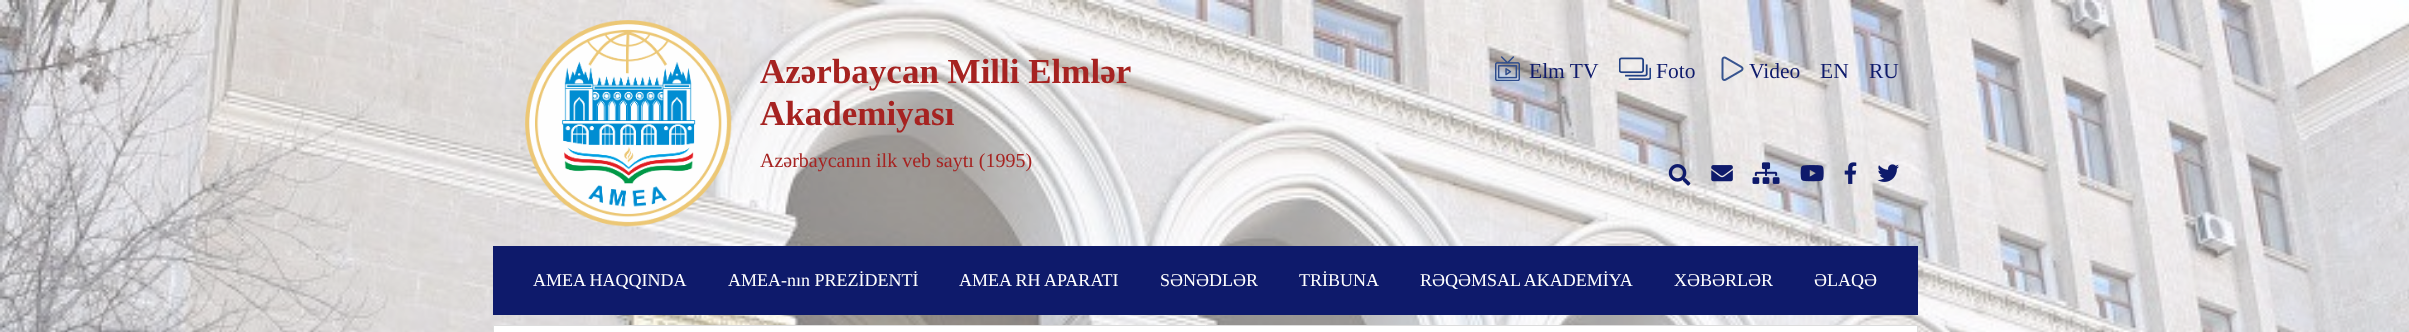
<!DOCTYPE html>
<meta charset="utf-8">
<style>body { margin: 0 } canvas { display: block }</style>
<canvas id="canvas" width="2409" height="332"></canvas>
<img id="img1" src="images/1.png" hidden>
<img id="img2" src="images/2.png" hidden>
<img id="img3" src="images/3.png" hidden>
<img id="img4" src="images/4.png" hidden>
<img id="img5" src="images/5.png" hidden>
<img id="img6" src="images/6.png" hidden>
<img id="img7" src="images/7.png" hidden>
<img id="img8" src="images/8.png" hidden>
<img id="img9" src="images/9.png" hidden>
<img id="img10" src="images/10.png" hidden>
<img id="img11" src="images/11.png" hidden>
<script>
window.onload = function () {
    const canvas = document.getElementById('canvas');
    const context = canvas.getContext('2d');
    context.miterLimit = 4;
    context.fontKerning = 'normal';

    context.fillStyle = 'rgb(255, 255, 255)';
    context.fillRect(0, 0, 2409, 332);
    context.drawImage(document.getElementById('img1'), 0, 0, 2409, 332);
    context.drawImage(document.getElementById('img2'), 525, 20, 207, 207);
    context.drawImage(document.getElementById('img3'), 1495, 56, 25, 25);
    context.drawImage(document.getElementById('img4'), 1619, 57, 32, 23);
    context.drawImage(document.getElementById('img5'), 1721, 56, 23, 25);
    context.drawImage(document.getElementById('img6'), 1668, 164, 23, 22);
    context.drawImage(document.getElementById('img7'), 1711, 165, 22, 17);
    context.drawImage(document.getElementById('img8'), 1752, 162, 28, 22);
    context.drawImage(document.getElementById('img9'), 1800, 165, 24, 17);
    context.drawImage(document.getElementById('img10'), 1844, 162, 13, 22);
    context.drawImage(document.getElementById('img11'), 1877, 164, 22, 18);
    context.fillStyle = 'rgb(14, 26, 107)';
    context.fillRect(493, 246, 1425, 69);
    context.fillStyle = 'rgb(255, 255, 255)';
    context.beginPath();
    context.rect(493.5, 325.5, 1424, 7);
    context.fill();
    context.strokeStyle = 'rgb(221, 221, 221)';
    context.stroke();
    context.font = 'bold 35px Liberation Serif';
    context.fillStyle = 'rgb(166, 35, 33)';
    context.fillText('Azərbaycan Milli Elmlər', 760, 83);
    context.fillText('Akademiyası', 760, 125);
    context.font = '20px Liberation Serif';
    context.fillText('Azərbaycanın ilk veb saytı (1995)', 760, 167);
    context.font = '21.5px Liberation Serif';
    context.fillStyle = 'rgb(14, 26, 107)';
    context.fillText('Elm TV', 1529, 78);
    context.fillText('Foto', 1656, 78);
    context.fillText('Video', 1749, 78);
    context.fillText('EN', 1820, 78);
    context.fillText('RU', 1869, 78);
    context.font = '18px Liberation Serif';
    context.fillStyle = 'rgb(255, 255, 255)';
    context.fillText('AMEA HAQQINDA', 533, 286);
    context.fillText('AMEA-nın PREZİDENTİ', 728, 286);
    context.fillText('AMEA RH APARATI', 959, 286);
    context.fillText('SƏNƏDLƏR', 1160, 286);
    context.fillText('TRİBUNA', 1299, 286);
    context.fillText('RƏQƏMSAL AKADEMİYA', 1420, 286);
    context.fillText('XƏBƏRLƏR', 1674, 286);
    context.fillText('ƏLAQƏ', 1814, 286);
};
</script>
